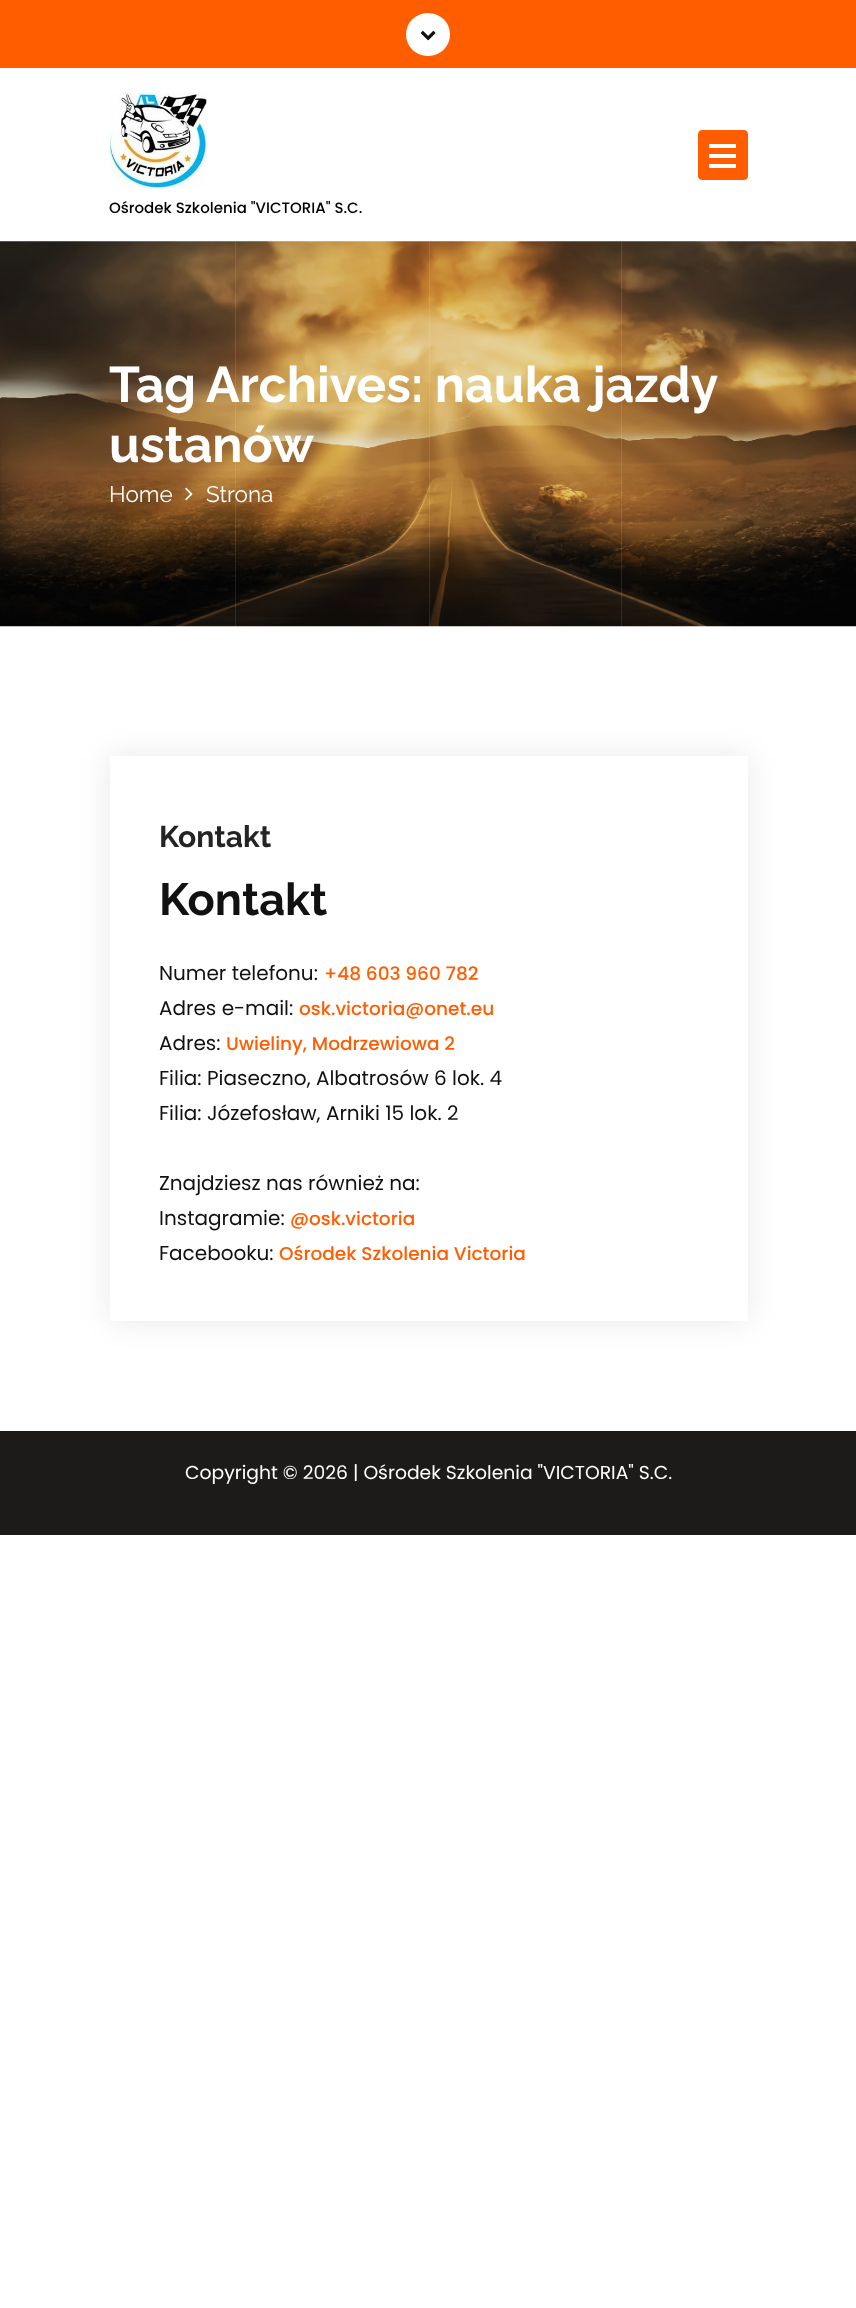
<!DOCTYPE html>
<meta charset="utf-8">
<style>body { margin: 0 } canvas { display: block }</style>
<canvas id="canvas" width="856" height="2308"></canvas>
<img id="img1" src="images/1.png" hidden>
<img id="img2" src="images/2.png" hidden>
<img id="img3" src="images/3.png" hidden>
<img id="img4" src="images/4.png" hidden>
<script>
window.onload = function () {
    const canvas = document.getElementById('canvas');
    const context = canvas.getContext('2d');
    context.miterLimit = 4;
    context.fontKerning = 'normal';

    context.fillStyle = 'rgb(255, 255, 255)';
    context.fillRect(0, 0, 856, 2308);
    context.fillStyle = 'rgb(255, 93, 0)';
    context.fillRect(0, 0, 856, 68);
    context.fillStyle = 'rgb(255, 255, 255)';
    context.beginPath();
    context.roundRect(406, 13, 44, 43, 21.5);
    context.fill();
    context.drawImage(document.getElementById('img1'), 420, 31, 16, 10);
    context.fillStyle = 'rgb(255, 93, 0)';
    context.beginPath();
    context.roundRect(698.5, 130.5, 49, 49, 3.5);
    context.fill();
    context.strokeStyle = 'rgb(255, 93, 0)';
    context.stroke();
    context.fillStyle = 'rgb(255, 255, 255)';
    context.fillRect(709, 144, 27, 4);
    context.fillRect(709, 154, 27, 4);
    context.fillRect(709, 164, 27, 4);
    context.drawImage(document.getElementById('img2'), 110, 92, 97, 97);
    context.drawImage(document.getElementById('img3'), 0, 241, 856, 386);
    context.fillStyle = 'rgba(255, 255, 255, 0.1)';
    context.fillRect(235, 241, 1, 385);
    context.fillRect(429, 241, 1, 385);
    context.fillRect(621, 241, 1, 385);
    context.drawImage(document.getElementById('img4'), 185, 487, 8, 14);
    context.fillStyle = 'rgba(0, 0, 0, 0.09)';
    context.filter = 'blur(15.5px)';
    context.beginPath();
    context.rect(110, 756, 638, 565);
    context.fill();
    context.filter = 'none';
    context.fillStyle = 'rgb(255, 255, 255)';
    context.fillRect(110, 756, 638, 565);
    context.fillStyle = 'rgb(29, 26, 26)';
    context.fillRect(0, 1431, 856, 104);
    context.font = '500 15px Poppins';
    context.fillStyle = 'rgb(0, 0, 0)';
    context.fillText('Ośrodek Szkolenia "VICTORIA" S.C.', 109, 213);
    context.wordSpacing = '-0.5px';
    context.font = 'bold 50px Raleway';
    context.fillStyle = 'rgb(255, 255, 255)';
    context.fillText('Tag Archives: nauka jazdy', 109, 402);
    context.wordSpacing = '0px';
    context.fillText('ustanów', 109, 462);
    context.font = '22.5px Raleway';
    context.fillText('Home', 109, 502);
    context.fillText('Strona', 206, 502);
    context.font = 'bold 30px Raleway';
    context.fillStyle = 'rgb(36, 36, 36)';
    context.fillText('Kontakt', 159, 847);
    context.font = 'bold 45px Raleway';
    context.fillStyle = 'rgb(17, 17, 17)';
    context.fillText('Kontakt', 159, 915);
    context.font = '20px Poppins';
    context.fillText('Numer telefonu:', 159, 980);
    context.font = '500 18.5px Poppins';
    context.fillStyle = 'rgb(255, 93, 0)';
    context.fillText('+48 603 960 782', 324, 980);
    context.font = '20px Poppins';
    context.fillStyle = 'rgb(17, 17, 17)';
    context.fillText('Adres e-mail:', 159, 1015);
    context.font = '500 18.5px Poppins';
    context.fillStyle = 'rgb(255, 93, 0)';
    context.fillText('osk.victoria@onet.eu', 299, 1015);
    context.font = '20px Poppins';
    context.fillStyle = 'rgb(17, 17, 17)';
    context.fillText('Adres:', 159, 1050);
    context.font = '500 18.5px Poppins';
    context.fillStyle = 'rgb(255, 93, 0)';
    context.fillText('Uwieliny, Modrzewiowa 2', 226, 1050);
    context.font = '20px Poppins';
    context.fillStyle = 'rgb(17, 17, 17)';
    context.fillText('Filia: Piaseczno, Albatrosów 6 lok. 4', 159, 1085);
    context.fillText('Filia: Józefosław, Arniki 15 lok. 2', 159, 1120);
    context.fillText('Znajdziesz nas również na:', 159, 1190);
    context.fillText('Instagramie:', 159, 1225);
    context.font = '500 18.5px Poppins';
    context.fillStyle = 'rgb(255, 93, 0)';
    context.fillText('@osk.victoria', 290, 1225);
    context.font = '20px Poppins';
    context.fillStyle = 'rgb(17, 17, 17)';
    context.fillText('Facebooku:', 159, 1260);
    context.font = '500 18.5px Poppins';
    context.fillStyle = 'rgb(255, 93, 0)';
    context.fillText('Ośrodek Szkolenia Victoria', 279, 1260);
    context.font = '18.75px Poppins';
    context.fillStyle = 'rgb(255, 255, 255)';
    context.fillText('Copyright © 2026 | Ośrodek Szkolenia "VICTORIA" S.C.', 185, 1479);
};
</script>
